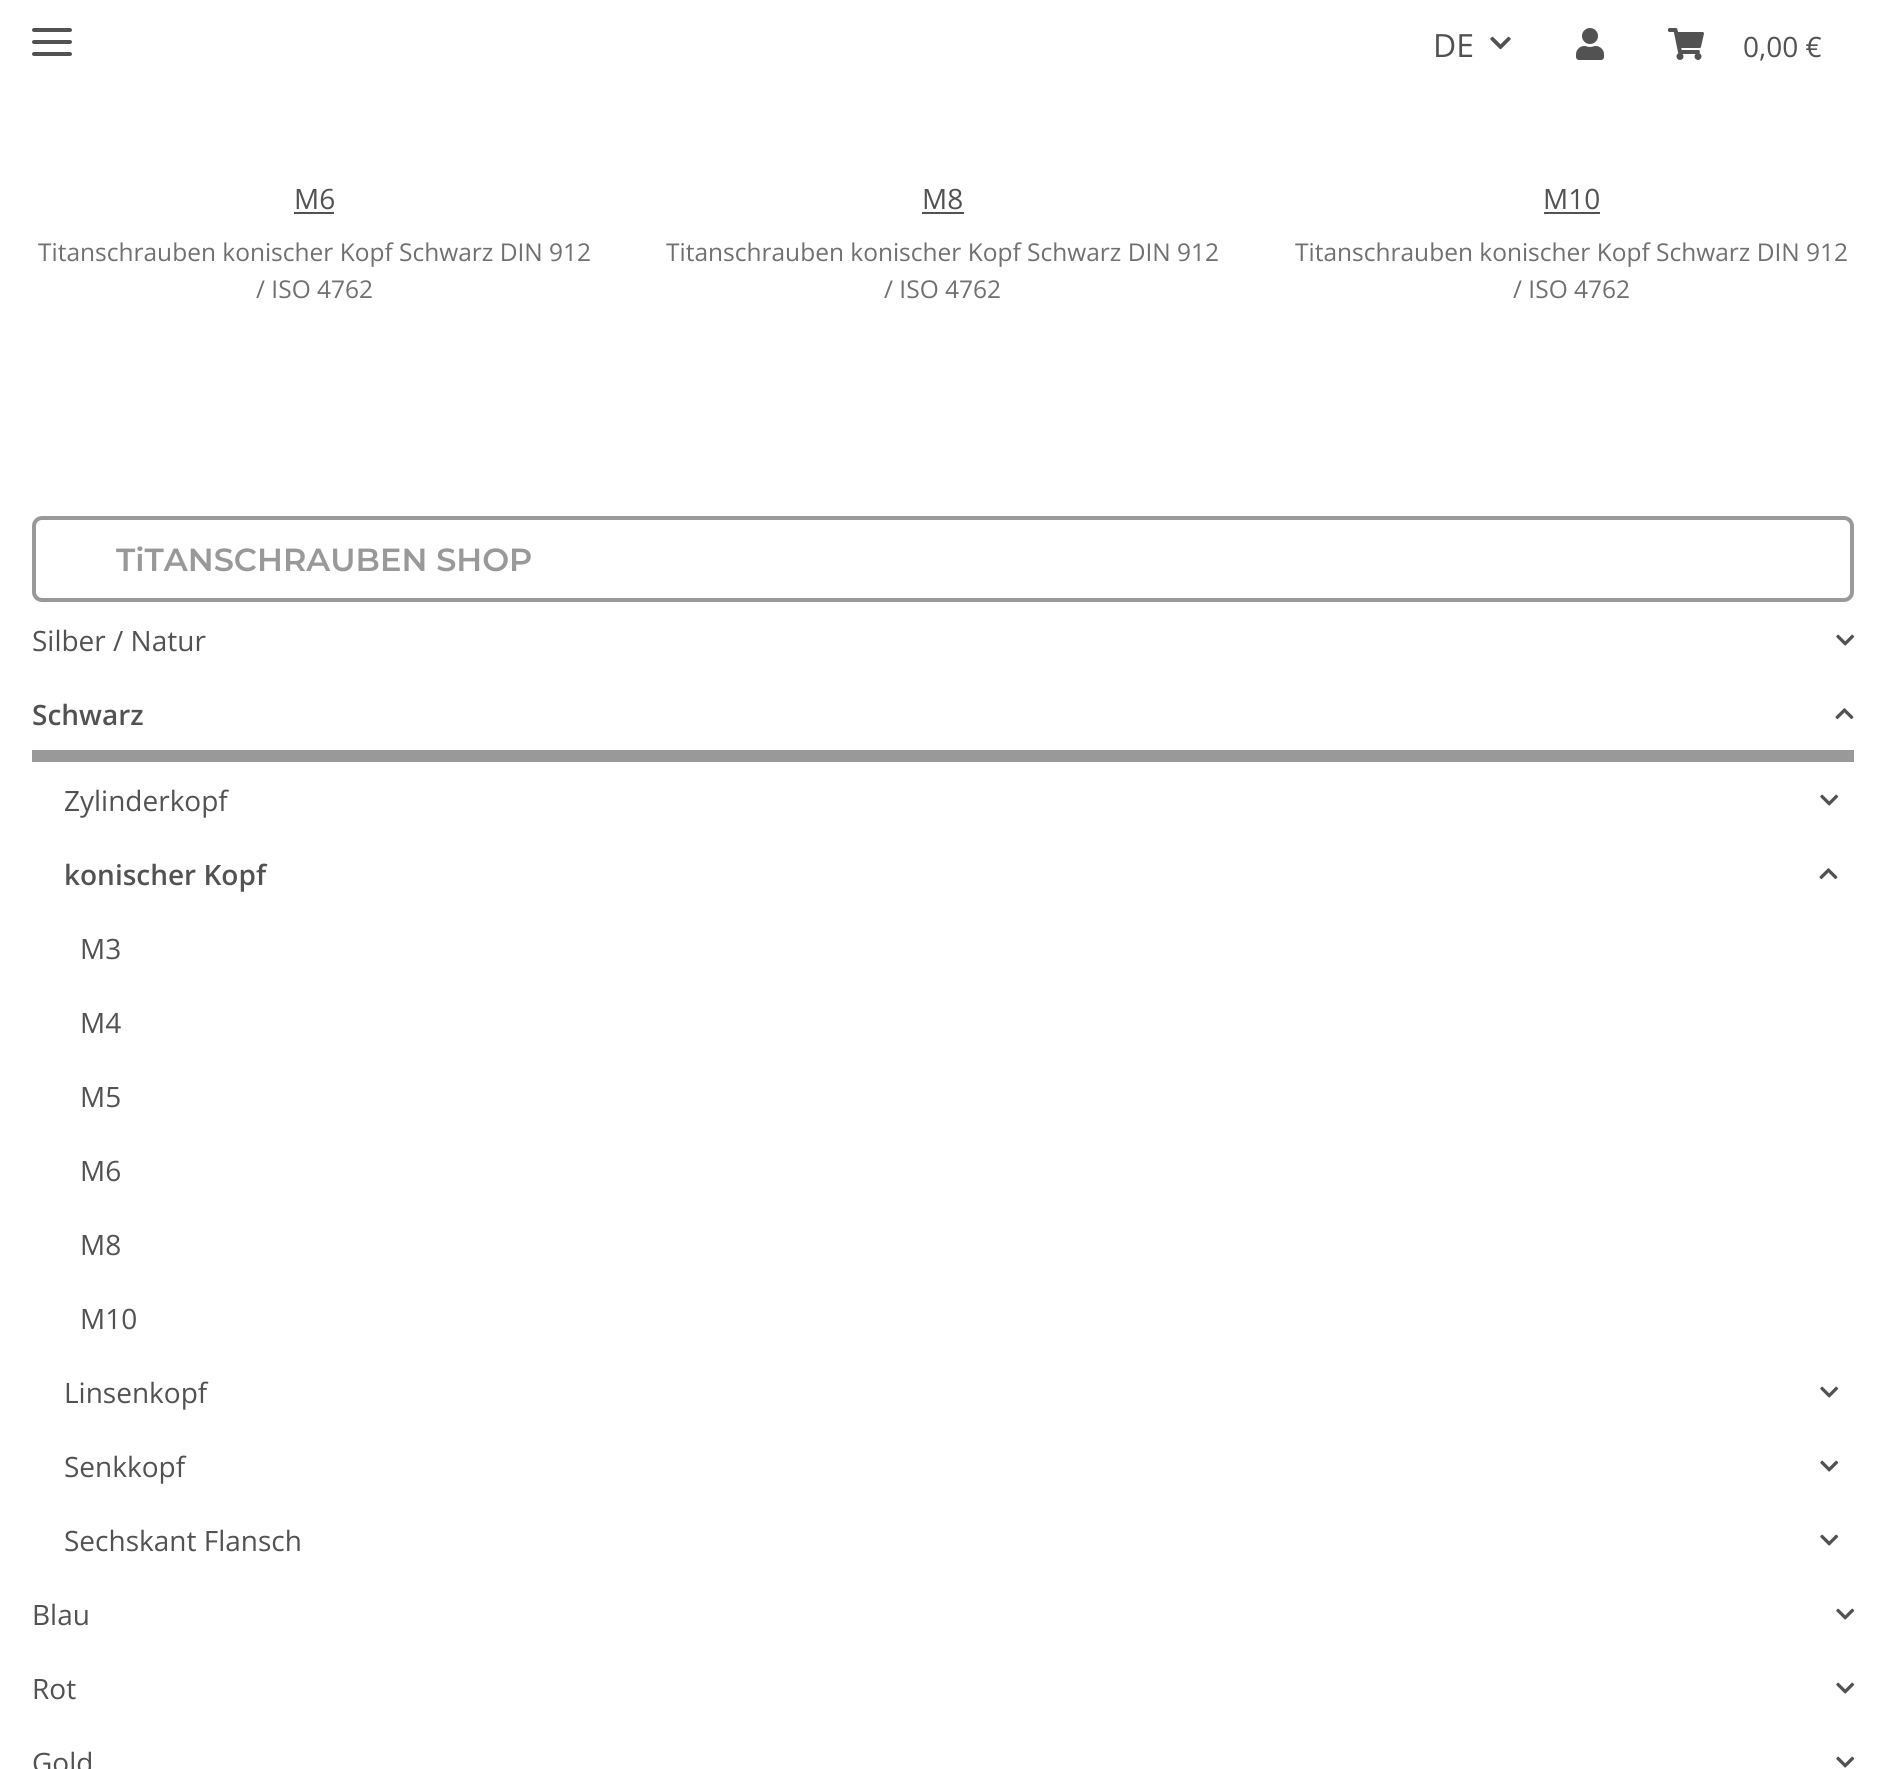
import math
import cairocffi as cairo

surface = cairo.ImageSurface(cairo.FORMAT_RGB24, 1886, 1769)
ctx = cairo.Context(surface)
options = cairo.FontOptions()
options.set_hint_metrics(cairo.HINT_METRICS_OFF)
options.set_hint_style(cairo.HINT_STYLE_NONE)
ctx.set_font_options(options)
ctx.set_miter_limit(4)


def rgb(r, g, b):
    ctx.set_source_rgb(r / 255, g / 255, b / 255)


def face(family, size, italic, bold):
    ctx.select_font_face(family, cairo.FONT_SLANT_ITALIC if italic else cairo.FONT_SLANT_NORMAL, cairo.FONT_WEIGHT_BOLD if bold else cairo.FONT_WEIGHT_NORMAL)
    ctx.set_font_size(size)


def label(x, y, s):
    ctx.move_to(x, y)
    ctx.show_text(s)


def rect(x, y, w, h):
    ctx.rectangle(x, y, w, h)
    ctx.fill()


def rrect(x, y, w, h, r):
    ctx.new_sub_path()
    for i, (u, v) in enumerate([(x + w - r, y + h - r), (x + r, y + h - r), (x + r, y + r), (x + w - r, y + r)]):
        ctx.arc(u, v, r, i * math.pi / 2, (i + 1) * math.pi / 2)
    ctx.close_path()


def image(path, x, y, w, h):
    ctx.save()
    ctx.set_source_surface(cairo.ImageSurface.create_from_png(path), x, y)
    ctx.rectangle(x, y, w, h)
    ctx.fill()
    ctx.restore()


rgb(255, 255, 255)
ctx.paint()
rgb(82, 82, 82)
rrect(32, 40, 40, 4, 2)
ctx.fill()
rrect(32, 28, 40, 4, 2)
ctx.fill()
rrect(32, 52, 40, 4, 2)
ctx.fill()
face('Open Sans', 32, 0, 0)
label(1433, 57, 'DE')
image('image0.png', 1490, 36, 21, 14)
image('image1.png', 1576, 28, 28, 32)
image('image2.png', 1668, 28, 36, 32)
face('Open Sans', 28, 0, 0)
label(1743, 57, '0,00 €')
label(294, 209, 'M6')
rect(294, 212, 40, 2)
face('Open Sans', 24.5, 0, 0)
rgb(112, 112, 112)
label(38, 261, 'Titanschrauben konischer Kopf Schwarz DIN 912')
label(256, 298, '/ ISO 4762')
face('Open Sans', 28, 0, 0)
rgb(82, 82, 82)
label(922, 209, 'M8')
rect(922, 212, 42, 2)
face('Open Sans', 24.5, 0, 0)
rgb(112, 112, 112)
label(666, 261, 'Titanschrauben konischer Kopf Schwarz DIN 912')
label(884, 298, '/ ISO 4762')
face('Open Sans', 28, 0, 0)
rgb(82, 82, 82)
label(1543, 209, 'M10')
rect(1544, 212, 56, 2)
face('Open Sans', 24.5, 0, 0)
rgb(112, 112, 112)
label(1295, 261, 'Titanschrauben konischer Kopf Schwarz DIN 912')
label(1513, 298, '/ ISO 4762')
rrect(34, 518, 1818, 82, 8)
rgb(153, 153, 153)
ctx.set_line_width(4)
ctx.stroke()
face('Montserrat SemiBold', 32, 0, 0)
label(116, 571, 'TiTANSCHRAUBEN SHOP')
face('Open Sans', 28, 0, 0)
rgb(82, 82, 82)
label(32, 651, 'Silber / Natur')
image('image3.png', 1836, 634, 19, 12)
rgb(153, 153, 153)
rect(32, 750, 1822, 12)
face('Open Sans SemiBold', 28, 0, 0)
rgb(82, 82, 82)
label(32, 725, 'Schwarz')
image('image4.png', 1835, 708, 19, 11)
face('Open Sans', 28, 0, 0)
label(64, 811, 'Zylinderkopf')
image('image3.png', 1820, 794, 19, 12)
face('Open Sans SemiBold', 28, 0, 0)
label(64, 885, 'konischer Kopf')
image('image4.png', 1819, 868, 19, 11)
face('Open Sans', 28, 0, 0)
label(80, 959, 'M3')
label(80, 1033, 'M4')
label(80, 1107, 'M5')
label(80, 1181, 'M6')
label(80, 1255, 'M8')
label(80, 1329, 'M10')
label(64, 1403, 'Linsenkopf')
image('image3.png', 1820, 1386, 19, 12)
label(64, 1477, 'Senkkopf')
image('image3.png', 1820, 1460, 19, 12)
label(64, 1551, 'Sechskant Flansch')
image('image3.png', 1820, 1534, 19, 12)
label(32, 1625, 'Blau')
image('image3.png', 1836, 1608, 19, 12)
label(32, 1699, 'Rot')
image('image3.png', 1836, 1682, 19, 12)
label(32, 1773, 'Gold')
image('image3.png', 1836, 1756, 19, 12)
surface.write_to_png('render.png')
